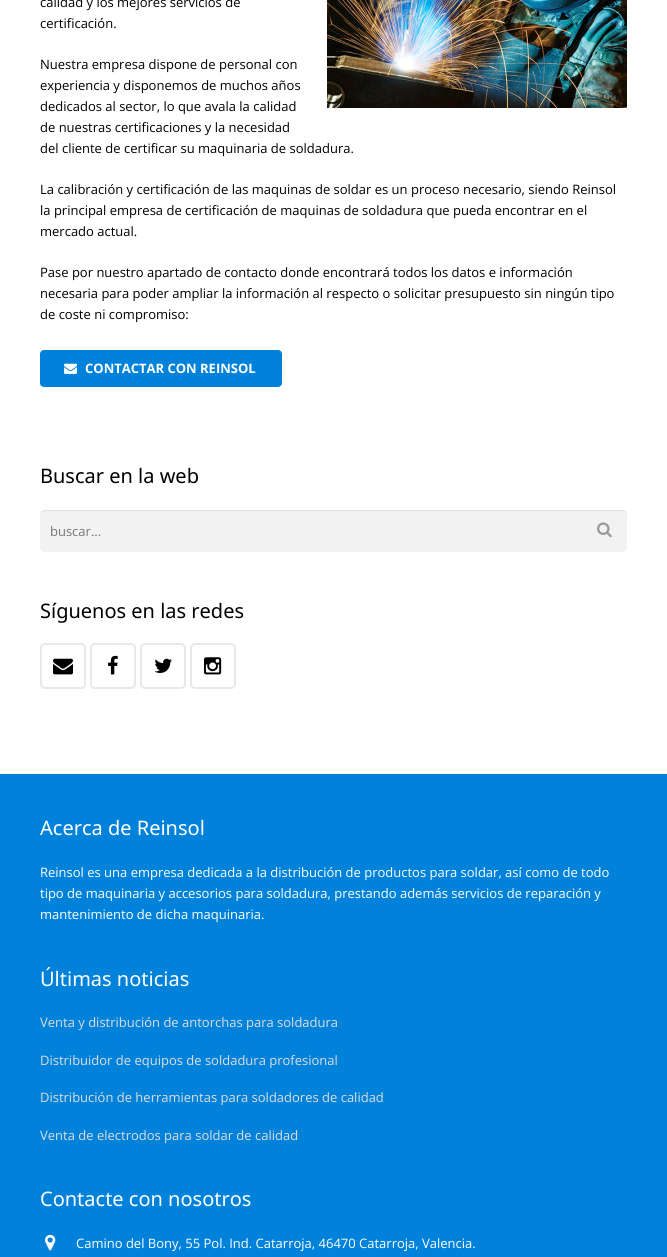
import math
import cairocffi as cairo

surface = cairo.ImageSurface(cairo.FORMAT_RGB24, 667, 1257)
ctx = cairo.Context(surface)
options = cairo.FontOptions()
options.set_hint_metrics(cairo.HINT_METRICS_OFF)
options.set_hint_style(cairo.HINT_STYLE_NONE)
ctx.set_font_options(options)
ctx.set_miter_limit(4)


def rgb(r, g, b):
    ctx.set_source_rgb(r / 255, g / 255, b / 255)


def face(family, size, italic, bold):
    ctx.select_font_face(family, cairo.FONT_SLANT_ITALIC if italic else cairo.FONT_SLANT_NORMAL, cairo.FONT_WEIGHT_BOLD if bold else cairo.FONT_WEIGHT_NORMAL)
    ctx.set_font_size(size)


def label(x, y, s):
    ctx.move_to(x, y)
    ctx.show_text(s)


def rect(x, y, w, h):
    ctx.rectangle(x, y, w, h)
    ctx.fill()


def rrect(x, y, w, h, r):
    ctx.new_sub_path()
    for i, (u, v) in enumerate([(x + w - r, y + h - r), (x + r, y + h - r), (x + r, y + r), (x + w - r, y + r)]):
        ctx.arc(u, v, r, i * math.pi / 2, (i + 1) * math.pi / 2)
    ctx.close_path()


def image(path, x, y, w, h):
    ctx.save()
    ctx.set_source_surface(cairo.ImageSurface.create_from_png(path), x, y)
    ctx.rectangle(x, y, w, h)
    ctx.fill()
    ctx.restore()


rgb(255, 255, 255)
ctx.paint()
rgb(0, 120, 201)
rect(0, 774, 667, 1)
face('Open Sans', 13, 0, 0)
rgb(0, 0, 0)
label(40, 7, 'calidad y los mejores servicios de')
image('image0.png', 327, 0, 300, 108)
label(40, 28, 'certificación.')
label(40, 69, 'Nuestra empresa dispone de personal con')
label(40, 90, 'experiencia y disponemos de muchos años')
label(40, 111, 'dedicados al sector, lo que avala la calidad')
label(40, 132, 'de nuestras certificaciones y la necesidad')
label(40, 153, 'del cliente de certificar su maquinaria de soldadura.')
label(40, 194, 'La calibración y certificación de las maquinas de soldar es un proceso necesario, siendo Reinsol')
label(40, 215, 'la principal empresa de certificación de maquinas de soldadura que pueda encontrar en el')
label(40, 236, 'mercado actual.')
label(40, 277, 'Pase por nuestro apartado de contacto donde encontrará todos los datos e información')
label(40, 298, 'necesaria para poder ampliar la información al respecto o solicitar presupuesto sin ningún tipo')
label(40, 319, 'de coste ni compromiso:')
rgb(0, 130, 218)
rrect(40, 350, 242, 37, 4)
ctx.fill()
image('image1.png', 64, 363, 13, 11)
face('Open Sans', 13, 0, 1)
rgb(255, 255, 255)
label(85, 373, 'CONTACTAR CON REINSOL')
face('Noto Sans', 20, 0, 0)
rgb(0, 0, 0)
label(40, 483, 'Buscar en la web')
rgb(242, 242, 242)
rrect(40, 510, 587, 42, 5)
ctx.fill()
ctx.set_source_rgba(0, 0, 0, 0.08)
ctx.new_path()
ctx.move_to(45, 511)
ctx.line_to(622, 511)
ctx.curve_to(625, 511, 627, 513, 627, 516)
ctx.line_to(627, 515)
ctx.curve_to(627, 512, 625, 510, 622, 510)
ctx.line_to(45, 510)
ctx.curve_to(42, 510, 40, 512, 40, 515)
ctx.line_to(40, 516)
ctx.curve_to(40, 513, 42, 511, 45, 511)
ctx.close_path()
ctx.fill()
face('Open Sans', 13, 0, 0)
rgb(117, 117, 117)
label(50, 536, 'buscar...')
image('image2.png', 597, 522, 15, 16)
face('Noto Sans', 20, 0, 0)
rgb(0, 0, 0)
label(40, 618, 'Síguenos en las redes')
rrect(41, 644, 44, 44, 4)
rgb(232, 232, 232)
ctx.stroke()
image('image3.png', 53, 658, 20, 17)
rrect(91, 644, 44, 44, 4)
ctx.stroke()
image('image4.png', 108, 655, 10, 20)
rrect(141, 644, 44, 44, 4)
ctx.stroke()
image('image5.png', 154, 658, 18, 15)
rrect(191, 644, 44, 44, 4)
ctx.stroke()
image('image6.png', 204, 657, 18, 18)
rgb(0, 130, 218)
rect(0, 775, 667, 482)
rgb(255, 255, 255)
label(40, 835, 'Acerca de Reinsol')
face('Open Sans', 13, 0, 0)
label(40, 877, 'Reinsol es una empresa dedicada a la distribución de productos para soldar, así como de todo')
label(40, 898, 'tipo de maquinaria y accesorios para soldadura, prestando además servicios de reparación y')
label(40, 919, 'mantenimiento de dicha maquinaria.')
face('Noto Sans', 20, 0, 0)
label(40, 986, 'Últimas noticias')
face('Open Sans', 13, 0, 0)
rgb(221, 221, 221)
label(40, 1027, 'Venta y distribución de antorchas para soldadura')
label(40, 1065, 'Distribuidor de equipos de soldadura profesional')
label(40, 1102, 'Distribución de herramientas para soldadores de calidad')
label(40, 1140, 'Venta de electrodos para soldar de calidad')
face('Noto Sans', 20, 0, 0)
rgb(255, 255, 255)
label(40, 1206, 'Contacte con nosotros')
image('image7.png', 45, 1234, 11, 17)
face('Open Sans', 13, 0, 0)
label(76, 1248, 'Camino del Bony, 55 Pol. Ind. Catarroja, 46470 Catarroja, Valencia.')
surface.write_to_png('render.png')
